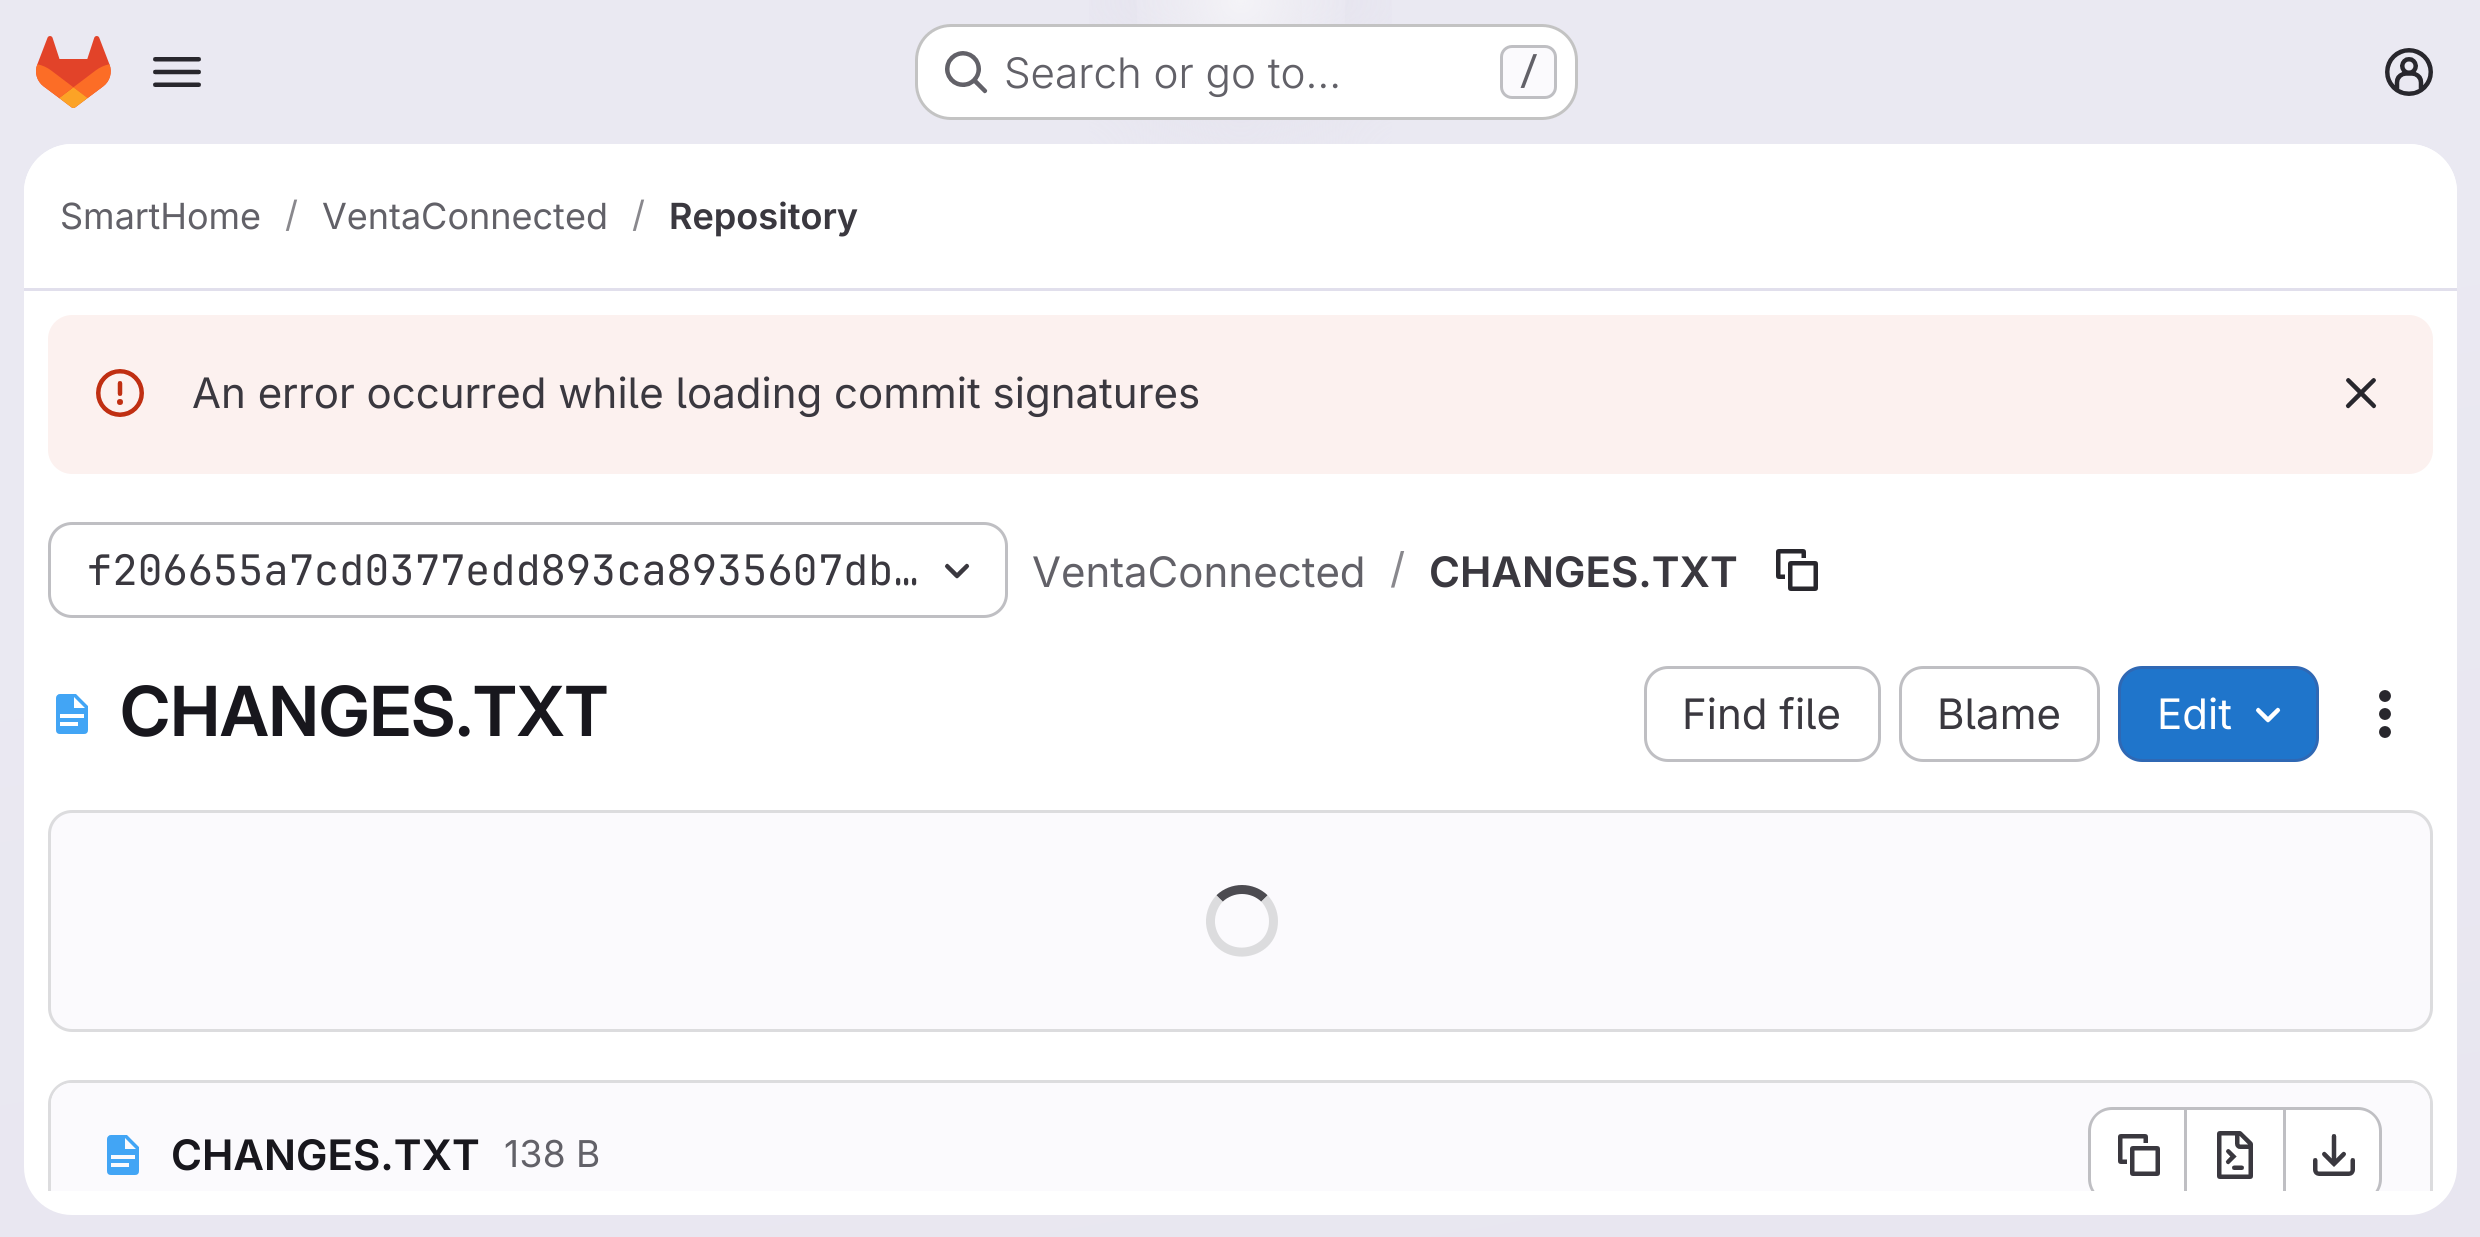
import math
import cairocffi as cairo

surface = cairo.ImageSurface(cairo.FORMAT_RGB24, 2480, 1237)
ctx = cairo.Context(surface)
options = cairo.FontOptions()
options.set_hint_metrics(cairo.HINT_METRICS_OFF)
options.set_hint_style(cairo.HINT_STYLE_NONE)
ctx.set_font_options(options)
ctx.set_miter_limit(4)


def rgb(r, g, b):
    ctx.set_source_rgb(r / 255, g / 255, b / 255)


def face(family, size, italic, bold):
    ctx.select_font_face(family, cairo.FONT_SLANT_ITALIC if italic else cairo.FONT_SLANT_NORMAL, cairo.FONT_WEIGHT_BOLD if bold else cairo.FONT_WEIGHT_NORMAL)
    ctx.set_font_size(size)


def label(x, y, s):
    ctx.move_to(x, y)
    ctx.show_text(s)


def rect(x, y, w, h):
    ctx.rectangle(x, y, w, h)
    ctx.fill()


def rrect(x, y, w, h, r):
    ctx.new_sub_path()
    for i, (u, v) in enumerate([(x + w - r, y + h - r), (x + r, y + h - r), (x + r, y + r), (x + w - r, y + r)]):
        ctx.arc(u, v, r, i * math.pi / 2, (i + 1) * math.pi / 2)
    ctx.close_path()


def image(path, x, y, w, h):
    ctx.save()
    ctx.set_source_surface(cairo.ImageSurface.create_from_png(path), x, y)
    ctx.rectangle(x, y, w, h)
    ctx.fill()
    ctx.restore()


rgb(255, 255, 255)
ctx.paint()
gradient = cairo.LinearGradient(1384, 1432, 1097, -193)
gradient.add_color_stop_rgba(0, 0.91, 0.902, 0.941, 1)
gradient.add_color_stop_rgba(0.7, 0.918, 0.914, 0.949, 1)
ctx.set_source(gradient)
rect(0, 0, 2480, 1237)
gradient = cairo.RadialGradient(0, 0, 0, 0, 0, 1)
gradient.set_matrix(cairo.Matrix(1 / 1241, 0, 0, 1 / 1239, -1 * 1241 / 1241, -1 * 0 / 1239))
gradient.add_color_stop_rgba(0, 0.894, 0.886, 0.929, 1)
gradient.add_color_stop_rgba(0.17, 0.894, 0.886, 0.929, 0)
ctx.set_source(gradient)
rect(1089, 0, 303, 144)
gradient = cairo.RadialGradient(0, 0, 0, 0, 0, 1)
gradient.set_matrix(cairo.Matrix(1 / 1241, 0, 0, 1 / 1239, -1 * 1241 / 1241, -1 * 0 / 1239))
gradient.add_color_stop_rgba(0, 0.894, 0.886, 0.925, 1)
gradient.add_color_stop_rgba(0.12, 0.894, 0.886, 0.925, 0)
ctx.set_source(gradient)
rect(1180, 0, 122, 61)
gradient = cairo.RadialGradient(1241, 0, 0, 1241, 0, 1753)
gradient.add_color_stop_rgba(0, 1, 1, 1, 0.6)
gradient.add_color_stop_rgba(0.07, 1, 1, 1, 0)
ctx.set_source(gradient)
rect(1137, 0, 208, 24)
image('image0.png', 36, 36, 75, 72)
image('image1.png', 153, 57, 48, 30)
rgb(255, 255, 255)
rrect(915, 24, 663, 96, 36)
ctx.fill()
rrect(916.5, 25.5, 660, 93, 34.5)
ctx.set_source_rgba(0.02, 0.02, 0.024, 0.24)
ctx.set_line_width(3)
ctx.stroke()
image('image2.png', 945, 51, 43, 43)
face('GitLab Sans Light', 42, 0, 0)
rgb(98, 97, 104)
label(1004, 88, 'Search or go to…')
rgb(251, 250, 253)
rrect(1501.5, 46.5, 54, 51, 10.5)
ctx.fill_preserve()
rgb(191, 191, 195)
ctx.stroke()
face('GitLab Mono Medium', 36, 0, 0)
rgb(98, 97, 104)
label(1518, 84, '/')
image('image3.png', 2385, 48, 48, 48)
rgb(255, 255, 255)
rrect(24, 144, 2433, 1071, 48)
ctx.fill()
ctx.new_path()
ctx.move_to(72, 144)
ctx.line_to(2409, 144)
ctx.curve_to(2435.5, 144, 2457, 165.5, 2457, 192)
ctx.line_to(2457, 291)
ctx.line_to(24, 291)
ctx.line_to(24, 192)
ctx.curve_to(24, 165.5, 45.5, 144, 72, 144)
ctx.close_path()
ctx.fill()
rgb(225, 223, 236)
rect(24, 288, 2433, 3)
face('GitLab Sans', 36, 0, 0)
rgb(98, 97, 104)
label(60, 229, 'SmartHome')
rgb(137, 136, 141)
label(285, 227, '/')
rgb(98, 97, 104)
label(322, 229, 'VentaConnected')
rgb(137, 136, 141)
label(632, 227, '/')
face('GitLab Sans SemiBold', 36, 0, 0)
rgb(58, 56, 63)
label(669, 229, 'Repository')
rgb(252, 241, 239)
rrect(48, 315, 2385, 159, 24)
ctx.fill()
image('image4.png', 96, 369, 48, 48)
face('GitLab Sans', 42, 0, 0)
rgb(58, 56, 63)
label(192, 408, 'An error occurred while loading commit signatures')
image('image5.png', 2345, 378, 32, 31)
rrect(49.5, 523.5, 957, 93, 22.5)
rgb(191, 191, 195)
ctx.stroke()
face('GitLab Mono', 42, 0, 0)
rgb(58, 56, 63)
label(87, 585, 'f206655a7cd0377edd893ca8935607db…')
image('image6.png', 944, 563, 26, 16)
face('GitLab Sans', 42, 0, 0)
rgb(98, 97, 104)
label(1032, 587, 'VentaConnected')
rgb(137, 136, 141)
label(1390, 583, '/')
face('GitLab Sans SemiBold', 42, 0, 0)
rgb(58, 56, 63)
label(1429, 587, 'CHANGES.TXT')
image('image7.png', 1776, 549, 42, 42)
image('image8.png', 56, 694, 32, 40)
face('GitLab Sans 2 SemiBold', 69, 0, 0)
rgb(24, 23, 29)
label(120, 736, 'CHANGES.TXT')
rrect(1645.5, 667.5, 234, 93, 22.5)
rgb(191, 191, 195)
ctx.stroke()
face('GitLab Sans', 42, 0, 0)
rgb(58, 56, 63)
label(1682, 729, 'Find file')
rrect(1900.5, 667.5, 198, 93, 22.5)
rgb(191, 191, 195)
ctx.stroke()
rgb(58, 56, 63)
label(1937, 729, 'Blame')
rgb(31, 117, 203)
rrect(2119.5, 667.5, 198, 93, 22.5)
ctx.fill_preserve()
rgb(47, 104, 180)
ctx.stroke()
rgb(255, 255, 255)
label(2157, 729, 'Edit')
image('image9.png', 2255, 707, 26, 16)
image('image10.png', 2379, 690, 12, 48)
rgb(251, 250, 253)
rrect(49.5, 811.5, 2382, 219, 22.5)
ctx.fill_preserve()
rgb(220, 220, 222)
ctx.stroke()
ctx.new_path()
ctx.move_to(1219.5, 898.5)
ctx.curve_to(1232, 886.5, 1252, 886.5, 1264.5, 898.5)
rgb(76, 75, 81)
ctx.set_line_width(9)
ctx.stroke()
ctx.new_path()
ctx.move_to(1264.5, 898.5)
ctx.curve_to(1270, 904.5, 1273.5, 912.5, 1273.5, 921)
ctx.curve_to(1273.5, 958.5, 1218.5, 964, 1211, 927)
ctx.curve_to(1209, 917, 1212.5, 906, 1219.5, 898.5)
rgb(220, 220, 222)
ctx.stroke()
ctx.save()
ctx.rectangle(24, 291, 2433, 900)
ctx.clip()
ctx.new_path()
ctx.move_to(72, 1080)
ctx.curve_to(59, 1080, 48, 1091, 48, 1104)
ctx.line_to(48, 1209)
ctx.line_to(51, 1210)
ctx.line_to(51, 1104)
ctx.curve_to(51, 1092, 60, 1083, 72, 1083)
ctx.line_to(2409, 1083)
ctx.curve_to(2421, 1083, 2430, 1092, 2430, 1104)
ctx.line_to(2430, 1210)
ctx.line_to(2433, 1209)
ctx.line_to(2433, 1104)
ctx.curve_to(2433, 1091, 2422, 1080, 2409, 1080)
ctx.close_path()
ctx.fill()
ctx.restore()
rgb(251, 250, 253)
ctx.new_path()
ctx.move_to(72, 1083)
ctx.line_to(2409, 1083)
ctx.curve_to(2420.5, 1083, 2430, 1092.5, 2430, 1104)
ctx.line_to(2430, 1191)
ctx.line_to(51, 1191)
ctx.line_to(51, 1104)
ctx.curve_to(51, 1092.5, 60.5, 1083, 72, 1083)
ctx.close_path()
ctx.fill()
image('image11.png', 107, 1135, 32, 40)
face('GitLab Sans SemiBold', 42, 0, 0)
rgb(24, 23, 29)
label(171, 1170, 'CHANGES.TXT')
face('GitLab Sans', 37, 0, 0)
rgb(98, 97, 104)
label(504, 1167, '138 B')
ctx.save()
ctx.rectangle(24, 291, 2433, 900)
ctx.clip()
rgb(255, 255, 255)
ctx.new_path()
ctx.move_to(2112, 1110)
ctx.line_to(2184, 1110)
ctx.line_to(2184, 1200)
ctx.line_to(2112, 1200)
ctx.curve_to(2100.5, 1200, 2091, 1190.5, 2091, 1179)
ctx.line_to(2091, 1131)
ctx.curve_to(2091, 1119.5, 2100.5, 1110, 2112, 1110)
ctx.close_path()
ctx.fill()
rgb(191, 191, 195)
ctx.set_fill_rule(cairo.FILL_RULE_EVEN_ODD)
ctx.new_path()
ctx.move_to(2112, 1107)
ctx.line_to(2184, 1107)
ctx.line_to(2184, 1203)
ctx.line_to(2112, 1203)
ctx.curve_to(2099, 1203, 2088, 1192, 2088, 1179)
ctx.line_to(2088, 1131)
ctx.curve_to(2088, 1118, 2099, 1107, 2112, 1107)
ctx.close_path()
ctx.move_to(2112, 1110)
ctx.line_to(2184, 1110)
ctx.line_to(2184, 1200)
ctx.line_to(2112, 1200)
ctx.curve_to(2100, 1200, 2091, 1191, 2091, 1179)
ctx.line_to(2091, 1131)
ctx.curve_to(2091, 1119, 2100, 1110, 2112, 1110)
ctx.close_path()
ctx.fill()
ctx.restore()
image('image12.png', 2118, 1134, 42, 42)
rgb(255, 255, 255)
rect(2187, 1110, 96, 81)
rgb(191, 191, 195)
rect(2187, 1107, 96, 3)
rect(2184, 1107, 3, 84)
image('image13.png', 2217, 1131, 36, 48)
ctx.save()
ctx.rectangle(24, 291, 2433, 900)
ctx.clip()
rgb(255, 255, 255)
ctx.new_path()
ctx.move_to(2286, 1110)
ctx.line_to(2358, 1110)
ctx.curve_to(2369.5, 1110, 2379, 1119.5, 2379, 1131)
ctx.line_to(2379, 1179)
ctx.curve_to(2379, 1190.5, 2369.5, 1200, 2358, 1200)
ctx.line_to(2286, 1200)
ctx.close_path()
ctx.fill()
rgb(191, 191, 195)
ctx.set_fill_rule(cairo.FILL_RULE_EVEN_ODD)
ctx.new_path()
ctx.move_to(2286, 1107)
ctx.line_to(2358, 1107)
ctx.curve_to(2371, 1107, 2382, 1118, 2382, 1131)
ctx.line_to(2382, 1179)
ctx.curve_to(2382, 1192, 2371, 1203, 2358, 1203)
ctx.line_to(2286, 1203)
ctx.close_path()
ctx.move_to(2286, 1110)
ctx.line_to(2358, 1110)
ctx.curve_to(2370, 1110, 2379, 1119, 2379, 1131)
ctx.line_to(2379, 1179)
ctx.curve_to(2379, 1191, 2370, 1200, 2358, 1200)
ctx.line_to(2286, 1200)
ctx.close_path()
ctx.fill()
ctx.restore()
rect(2283, 1107, 3, 84)
image('image14.png', 2313, 1134, 42, 42)
surface.write_to_png('render.png')
